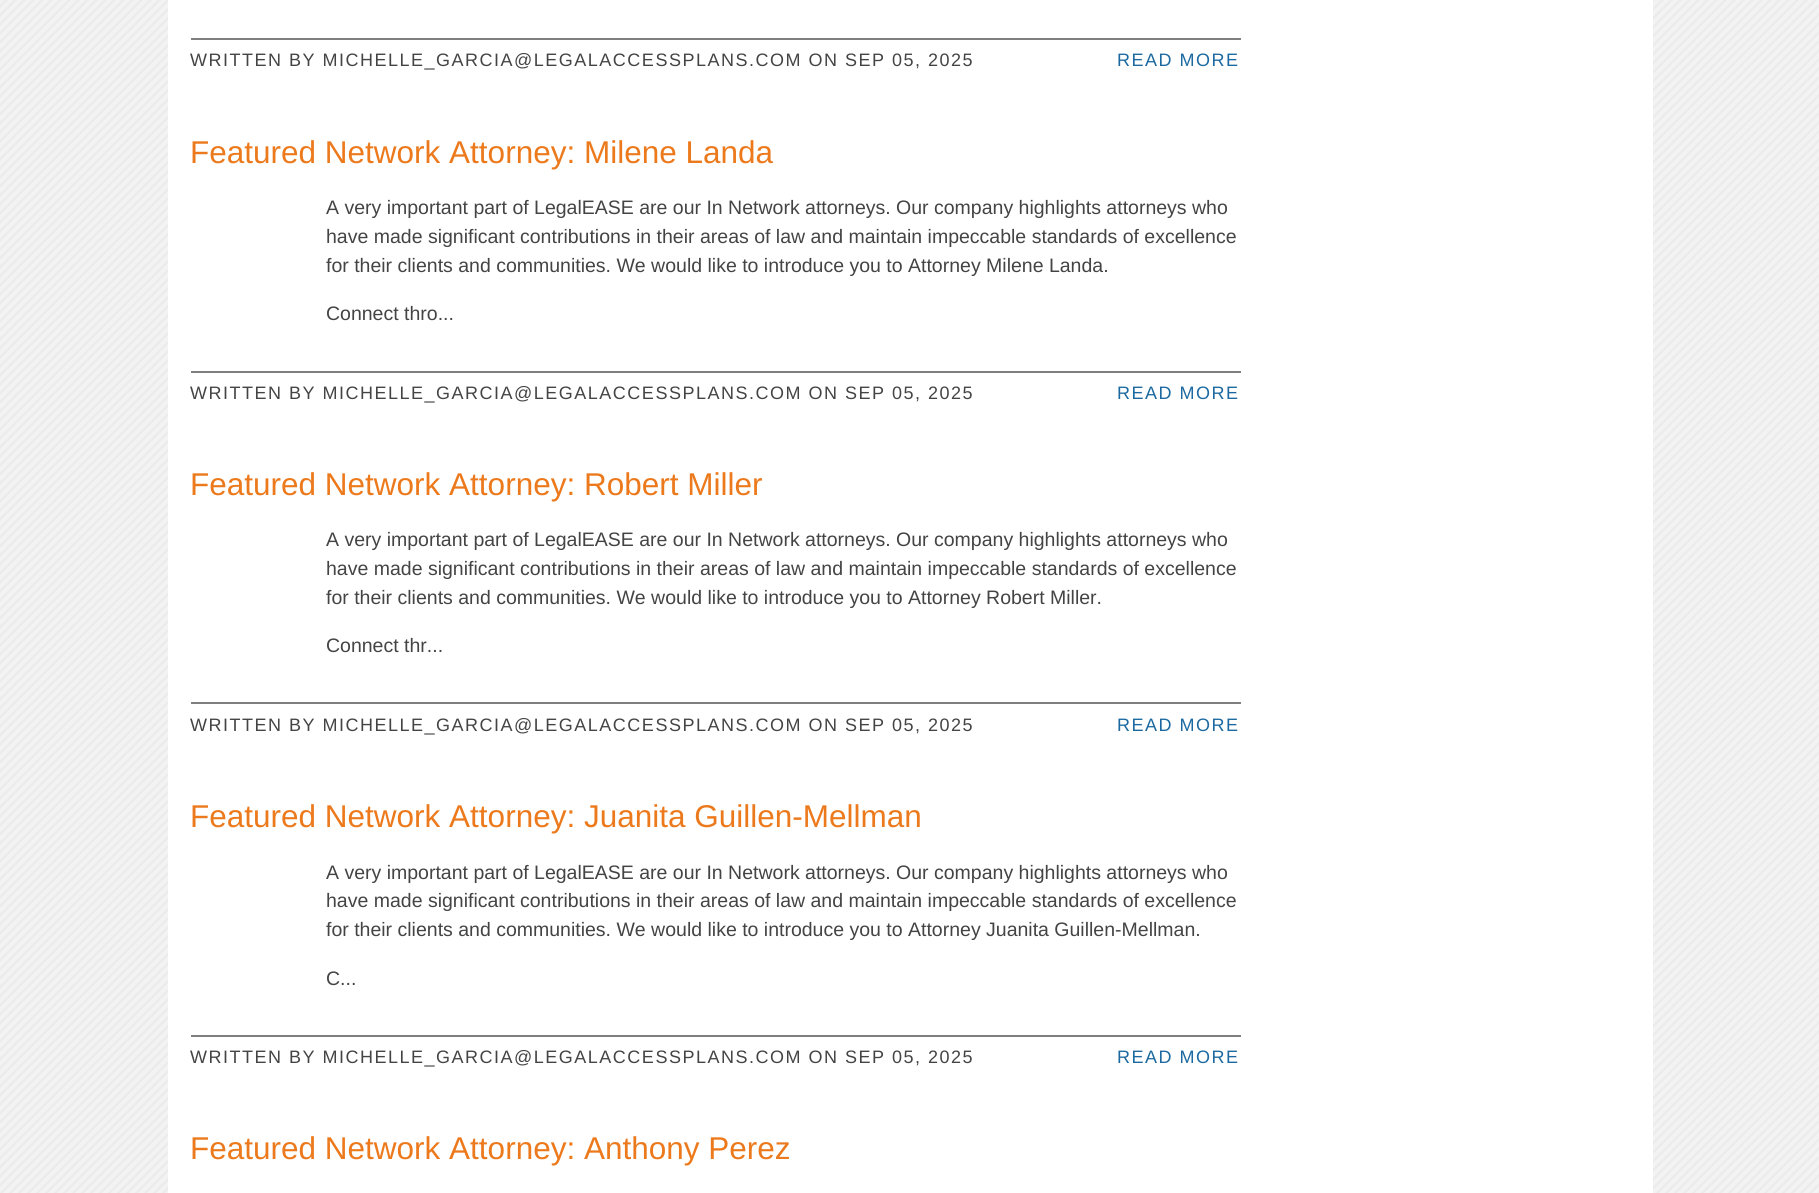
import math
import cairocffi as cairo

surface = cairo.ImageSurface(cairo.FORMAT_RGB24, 1819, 1193)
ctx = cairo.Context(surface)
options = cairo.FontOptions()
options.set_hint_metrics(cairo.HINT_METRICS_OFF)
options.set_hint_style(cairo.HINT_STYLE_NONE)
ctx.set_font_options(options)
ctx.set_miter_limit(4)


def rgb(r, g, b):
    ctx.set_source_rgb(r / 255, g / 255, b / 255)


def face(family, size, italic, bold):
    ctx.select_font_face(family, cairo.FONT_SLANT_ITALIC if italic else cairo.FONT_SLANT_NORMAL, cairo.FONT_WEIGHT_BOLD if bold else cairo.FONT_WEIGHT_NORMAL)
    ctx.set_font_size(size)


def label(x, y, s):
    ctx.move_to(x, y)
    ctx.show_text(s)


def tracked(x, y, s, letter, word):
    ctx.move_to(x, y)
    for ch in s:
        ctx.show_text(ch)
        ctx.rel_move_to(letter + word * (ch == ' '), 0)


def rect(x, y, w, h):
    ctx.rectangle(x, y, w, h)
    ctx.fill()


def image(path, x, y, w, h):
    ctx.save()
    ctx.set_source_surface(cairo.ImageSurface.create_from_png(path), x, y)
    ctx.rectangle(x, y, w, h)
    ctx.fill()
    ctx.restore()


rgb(255, 255, 255)
ctx.paint()
image('image0.png', 0, 0, 1819, 1193)
rgb(255, 255, 255)
rect(168, 0, 1485, 1193)
rgb(127, 127, 127)
rect(191, 38, 1050, 2)
face('Liberation Sans', 18, 0, 0)
rgb(68, 68, 68)
tracked(190, 66, 'WRITTEN BY MICHELLE_GARCIA@LEGALACCESSPLANS.COM ON SEP 05, 2025', 1.5, 0)
rgb(27, 105, 160)
tracked(1117, 66, 'READ MORE', 1.5, 0)
face('Liberation Sans', 31.5, 0, 0)
rgb(236, 122, 29)
label(190, 163, 'Featured Network Attorney: Milene Landa')
face('Liberation Sans', 19.5, 0, 0)
rgb(68, 68, 68)
label(326, 214, 'A very important part of LegalEASE are our In Network attorneys. Our company highlights attorneys who')
label(326, 243, 'have made significant contributions in their areas of law and maintain impeccable standards of excellence')
label(326, 272, 'for their clients and communities. We would like to introduce you to Attorney Milene Landa.')
label(326, 320, 'Connect thro...')
rgb(127, 127, 127)
rect(191, 371, 1050, 2)
face('Liberation Sans', 18, 0, 0)
rgb(68, 68, 68)
tracked(190, 399, 'WRITTEN BY MICHELLE_GARCIA@LEGALACCESSPLANS.COM ON SEP 05, 2025', 1.5, 0)
rgb(27, 105, 160)
tracked(1117, 399, 'READ MORE', 1.5, 0)
face('Liberation Sans', 31.5, 0, 0)
rgb(236, 122, 29)
label(190, 495, 'Featured Network Attorney: Robert Miller')
face('Liberation Sans', 19.5, 0, 0)
rgb(68, 68, 68)
label(326, 546, 'A very important part of LegalEASE are our In Network attorneys. Our company highlights attorneys who')
label(326, 575, 'have made significant contributions in their areas of law and maintain impeccable standards of excellence')
label(326, 604, 'for their clients and communities. We would like to introduce you to Attorney Robert Miller.')
label(326, 652, 'Connect thr...')
rgb(127, 127, 127)
rect(191, 702, 1050, 2)
face('Liberation Sans', 18, 0, 0)
rgb(68, 68, 68)
tracked(190, 731, 'WRITTEN BY MICHELLE_GARCIA@LEGALACCESSPLANS.COM ON SEP 05, 2025', 1.5, 0)
rgb(27, 105, 160)
tracked(1117, 731, 'READ MORE', 1.5, 0)
face('Liberation Sans', 31.5, 0, 0)
rgb(236, 122, 29)
label(190, 827, 'Featured Network Attorney: Juanita Guillen-Mellman')
face('Liberation Sans', 19.5, 0, 0)
rgb(68, 68, 68)
label(326, 879, 'A very important part of LegalEASE are our In Network attorneys. Our company highlights attorneys who')
label(326, 907, 'have made significant contributions in their areas of law and maintain impeccable standards of excellence')
label(326, 936, 'for their clients and communities. We would like to introduce you to Attorney Juanita Guillen-Mellman.')
label(326, 985, 'C...')
rgb(127, 127, 127)
rect(191, 1035, 1050, 2)
face('Liberation Sans', 18, 0, 0)
rgb(68, 68, 68)
tracked(190, 1063, 'WRITTEN BY MICHELLE_GARCIA@LEGALACCESSPLANS.COM ON SEP 05, 2025', 1.5, 0)
rgb(27, 105, 160)
tracked(1117, 1063, 'READ MORE', 1.5, 0)
face('Liberation Sans', 31.5, 0, 0)
rgb(236, 122, 29)
label(190, 1159, 'Featured Network Attorney: Anthony Perez')
surface.write_to_png('render.png')
